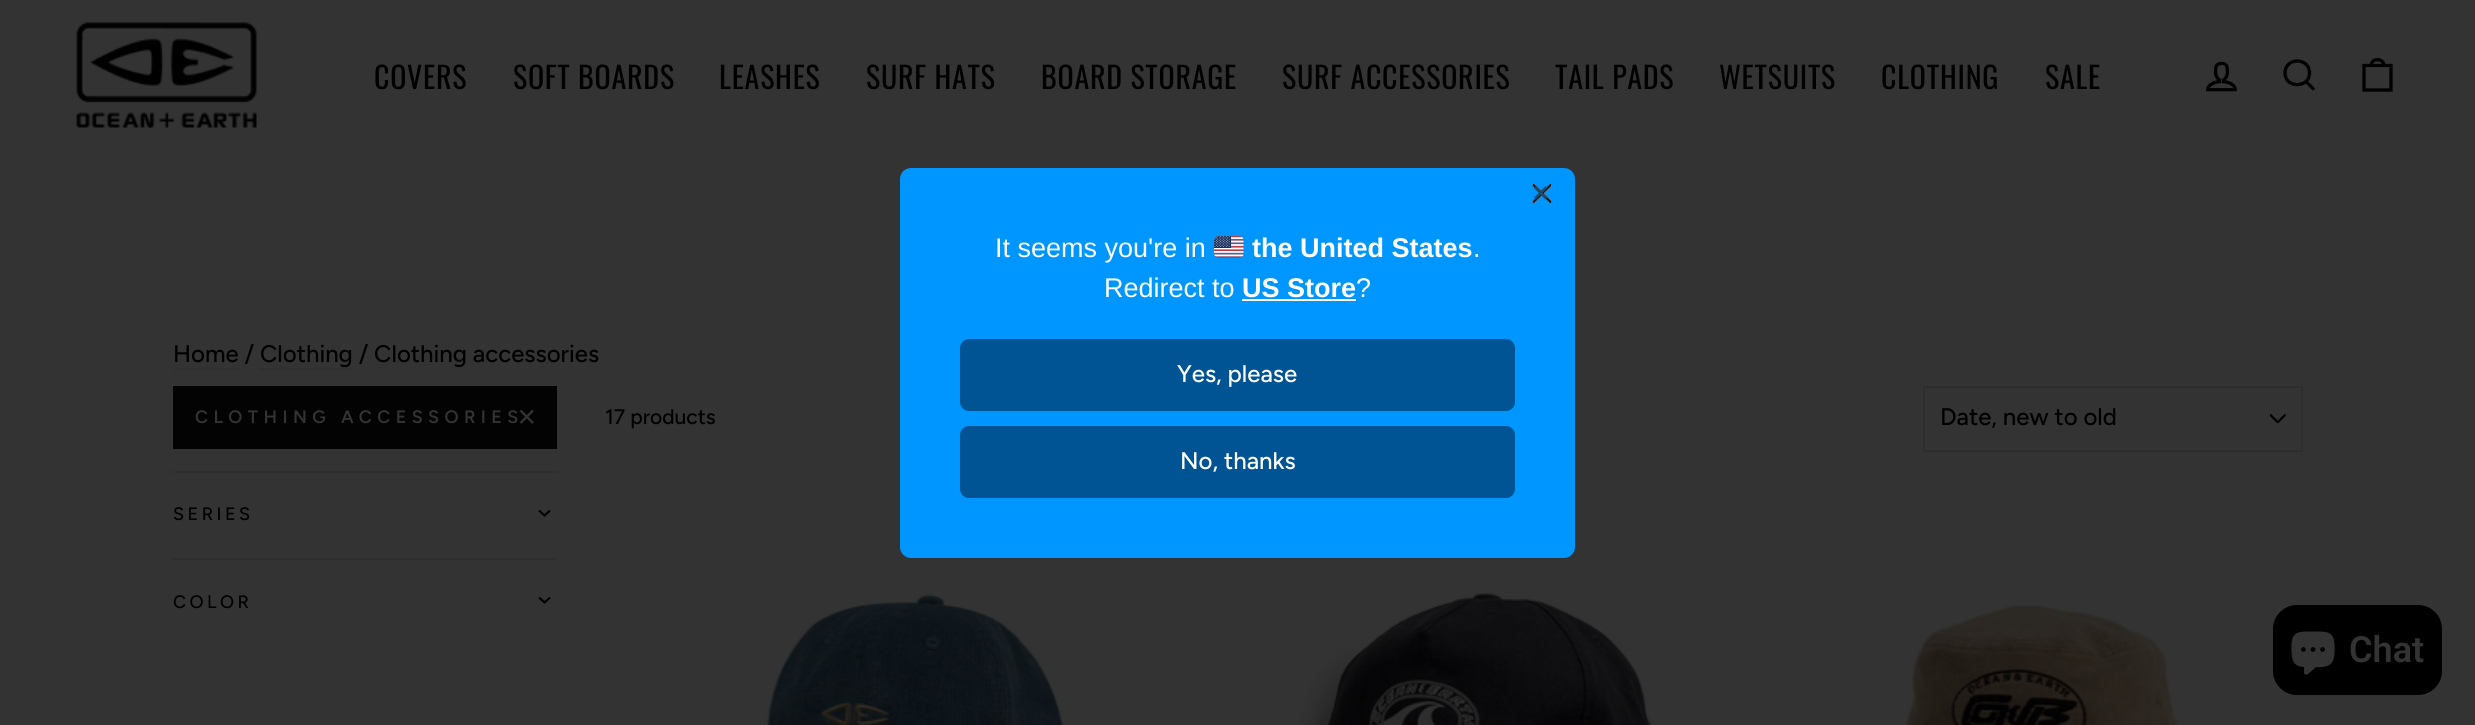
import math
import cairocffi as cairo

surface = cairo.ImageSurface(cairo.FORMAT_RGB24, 2475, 725)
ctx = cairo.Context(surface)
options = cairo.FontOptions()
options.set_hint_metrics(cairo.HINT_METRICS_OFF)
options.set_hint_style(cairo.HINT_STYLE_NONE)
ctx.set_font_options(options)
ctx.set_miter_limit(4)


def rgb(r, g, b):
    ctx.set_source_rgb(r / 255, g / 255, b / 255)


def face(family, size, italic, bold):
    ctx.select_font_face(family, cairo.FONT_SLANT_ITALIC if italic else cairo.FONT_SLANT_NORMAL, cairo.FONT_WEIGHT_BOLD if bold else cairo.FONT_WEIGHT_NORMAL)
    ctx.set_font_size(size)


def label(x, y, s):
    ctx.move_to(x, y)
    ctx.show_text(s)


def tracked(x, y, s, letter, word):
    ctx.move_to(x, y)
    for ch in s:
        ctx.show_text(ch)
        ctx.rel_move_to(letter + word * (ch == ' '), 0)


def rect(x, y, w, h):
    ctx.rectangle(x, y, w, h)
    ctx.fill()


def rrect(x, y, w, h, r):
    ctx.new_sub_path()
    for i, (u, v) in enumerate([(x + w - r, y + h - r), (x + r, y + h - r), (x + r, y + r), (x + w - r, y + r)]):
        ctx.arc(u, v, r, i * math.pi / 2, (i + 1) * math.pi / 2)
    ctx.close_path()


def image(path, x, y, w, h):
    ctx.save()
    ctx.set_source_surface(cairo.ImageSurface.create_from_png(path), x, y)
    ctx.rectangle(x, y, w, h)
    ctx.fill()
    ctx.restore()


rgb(51, 51, 51)
ctx.paint()
image('image0.png', 76, 22, 181, 106)
face('Oswald', 30, 0, 0)
rgb(0, 0, 0)
tracked(374, 89, 'COVERS', 0.75, 0)
tracked(513, 89, 'SOFT BOARDS', 0.75, 0)
tracked(719, 89, 'LEASHES', 0.75, 0)
tracked(866, 89, 'SURF HATS', 0.75, 0)
tracked(1041, 89, 'BOARD STORAGE', 0.75, 0)
tracked(1282, 89, 'SURF ACCESSORIES', 0.75, 0)
tracked(1555, 89, 'TAIL PADS', 0.75, 0)
tracked(1719, 89, 'WETSUITS', 0.75, 0)
tracked(1881, 89, 'CLOTHING', 0.75, 0)
tracked(2045, 89, 'SALE', 0.75, 0)
image('image1.png', 2206, 61, 31, 31)
ctx.new_path()
ctx.move_to(2309.5, 73)
ctx.curve_to(2309.5, 88.5, 2285, 88.5, 2285, 73)
ctx.curve_to(2285, 57, 2309.5, 57, 2309.5, 73)
ctx.close_path()
ctx.move_to(2314, 89.5)
ctx.line_to(2306, 81.5)
ctx.set_line_width(3.3)
ctx.stroke()
ctx.new_path()
ctx.move_to(2364, 65.5)
ctx.line_to(2391, 65.5)
ctx.line_to(2391, 90)
ctx.line_to(2364, 90)
ctx.close_path()
ctx.move_to(2371, 66)
ctx.curve_to(2371, 57.5, 2384, 57.5, 2384, 66)
ctx.stroke()
face('Figtree Medium', 24, 0, 0)
label(173, 362, 'Home / Clothing / Clothing accessories')
rgb(48, 48, 48)
rect(173, 368, 66, 2)
rect(260, 368, 93, 2)
rgb(3, 3, 3)
rect(173, 386, 384, 63)
face('Figtree SemiBold', 18, 0, 0)
rgb(51, 51, 51)
tracked(195, 423, 'CLOTHING ACCESSORIES', 5.4, 0)
ctx.new_path()
ctx.move_to(520.5, 410.5)
ctx.line_to(533, 423)
ctx.move_to(533, 410.5)
ctx.line_to(520.5, 423)
ctx.set_line_width(2.3)
ctx.stroke()
rgb(46, 46, 45)
rect(173, 471, 384, 2)
face('Figtree Medium', 18, 0, 0)
rgb(0, 0, 0)
tracked(173, 520, 'SERIES', 3.5, 0)
ctx.new_path()
ctx.move_to(539, 510.5)
ctx.line_to(544.5, 515.5)
ctx.line_to(550, 510.5)
ctx.set_line_width(2.1)
ctx.stroke()
rgb(46, 46, 45)
rect(173, 558, 384, 2)
rgb(0, 0, 0)
tracked(173, 608, 'COLOR', 3.5, 0)
ctx.new_path()
ctx.move_to(539, 597.5)
ctx.line_to(544.5, 602.5)
ctx.line_to(550, 597.5)
ctx.stroke()
face('Figtree Medium', 21, 0, 0)
label(605, 424, '17 products')
image('image2.png', 2270, 414, 16, 9)
ctx.rectangle(1924, 387, 378, 64)
rgb(46, 46, 46)
ctx.set_line_width(2)
ctx.stroke()
face('Figtree Medium', 24, 0, 0)
rgb(0, 0, 0)
label(1940, 425, 'Date, new to old')
image('image3.png', 766, 594, 298, 131)
image('image4.png', 1298, 590, 354, 135)
image('image5.png', 1904, 605, 274, 120)
rgb(0, 150, 255)
rrect(900, 168, 675, 390, 11)
ctx.fill()
image('image6.png', 1532, 184, 20, 19)
face('Figtree Medium', 34, 0, 0)
rgb(24, 75, 111)
label(1530, 203, '×')
face('Liberation Sans', 27, 0, 0)
rgb(255, 255, 255)
label(995, 257, 'It seems you\'re in')
image('image7.png', 1214, 236, 30, 22)
face('Liberation Sans', 27, 0, 1)
label(1252, 257, 'the United States')
face('Liberation Sans', 27, 0, 0)
label(1473, 257, '.')
label(1104, 297, 'Redirect to')
face('Liberation Sans', 27, 0, 1)
label(1242, 297, 'US Store')
rect(1242, 299, 114, 2)
face('Liberation Sans', 27, 0, 0)
label(1356, 297, '?')
rgb(0, 84, 147)
rrect(960, 339, 555, 72, 9)
ctx.fill()
face('Figtree Medium', 24, 0, 0)
rgb(255, 255, 255)
label(1177, 382, 'Yes, please')
rgb(0, 84, 147)
rrect(960, 426, 555, 72, 9)
ctx.fill()
rgb(255, 255, 255)
label(1180, 469, 'No, thanks')
rgb(0, 0, 0)
rrect(2273, 605, 169, 90, 24)
ctx.fill()
image('image8.png', 2291, 631, 44, 44)
face('Roboto SemiBold', 36, 0, 0)
rgb(51, 51, 51)
label(2349, 662, 'Chat')
surface.write_to_png('render.png')
